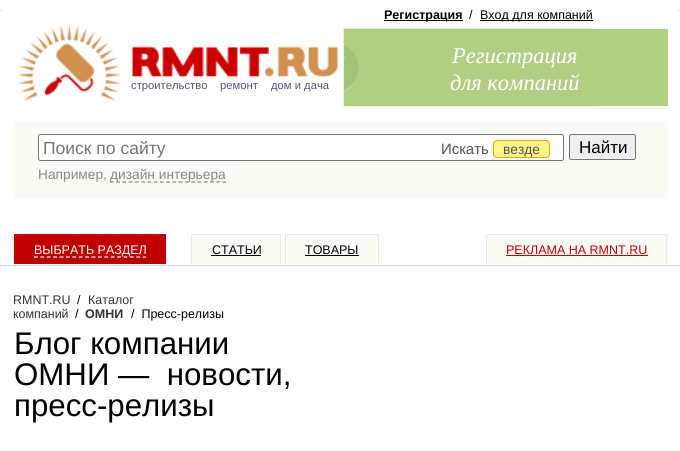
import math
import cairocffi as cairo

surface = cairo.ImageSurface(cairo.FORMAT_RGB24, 680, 451)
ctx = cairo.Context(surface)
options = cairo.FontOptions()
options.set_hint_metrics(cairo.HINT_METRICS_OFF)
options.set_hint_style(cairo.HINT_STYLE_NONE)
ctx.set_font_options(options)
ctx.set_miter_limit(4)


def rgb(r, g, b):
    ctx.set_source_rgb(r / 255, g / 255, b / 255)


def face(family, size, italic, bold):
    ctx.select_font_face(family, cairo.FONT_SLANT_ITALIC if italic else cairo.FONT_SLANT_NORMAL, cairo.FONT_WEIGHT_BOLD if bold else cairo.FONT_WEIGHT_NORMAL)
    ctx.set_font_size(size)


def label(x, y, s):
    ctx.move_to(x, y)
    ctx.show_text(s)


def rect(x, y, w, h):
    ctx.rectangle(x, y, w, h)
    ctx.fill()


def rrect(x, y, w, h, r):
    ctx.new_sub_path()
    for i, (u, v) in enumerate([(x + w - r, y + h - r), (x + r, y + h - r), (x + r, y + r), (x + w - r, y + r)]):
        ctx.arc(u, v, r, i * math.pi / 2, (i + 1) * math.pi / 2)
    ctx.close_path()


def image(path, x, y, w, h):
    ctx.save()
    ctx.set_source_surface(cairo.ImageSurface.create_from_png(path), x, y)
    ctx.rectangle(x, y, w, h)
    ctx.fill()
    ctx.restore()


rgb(255, 255, 255)
ctx.paint()
image('image0.png', 0, 9, 4, 4)
rgb(177, 207, 131)
rect(592, 29, 76, 77)
image('image2.png', 343, 28, 250, 79)
image('image1.png', 18, 25, 326, 82)
face('Liberation Sans', 11.25, 0, 0)
rgb(79, 87, 114)
label(131, 89, 'строительство')
label(220, 89, 'ремонт')
label(271, 89, 'дом и дача')
rgb(0, 0, 0)
rect(384, 20, 79, 1)
face('Liberation Sans', 12.5, 0, 1)
label(384, 19, 'Регистрация')
face('Liberation Sans', 12.5, 0, 0)
label(469, 19, '/')
rect(480, 20, 113, 1)
label(480, 19, 'Вход для компаний')
face('Liberation Serif', 22.5, 1, 0)
rgb(255, 255, 255)
label(452, 63, 'Регистрация')
label(450, 90, 'для компаний')
rgb(251, 251, 245)
rect(13, 121, 655, 78)
rgb(255, 255, 255)
rrect(38.5, 134.5, 525, 26, 2)
ctx.fill_preserve()
rgb(118, 118, 118)
ctx.set_line_width(1)
ctx.stroke()
face('Liberation Sans', 17.5, 0, 0)
rgb(117, 117, 117)
label(43, 154, 'Поиск по сайту')
face('Liberation Sans', 15, 0, 0)
rgb(85, 85, 85)
label(441, 154, 'Искать')
rgb(255, 247, 140)
rrect(493.5, 140.5, 56, 17, 3.5)
ctx.fill_preserve()
rgb(255, 165, 0)
ctx.stroke()
face('Liberation Sans', 13.75, 0, 0)
rgb(85, 85, 85)
label(503, 154, 'везде')
rgb(239, 239, 239)
rrect(569.5, 134.5, 66, 25, 2)
ctx.fill_preserve()
rgb(118, 118, 118)
ctx.stroke()
face('Liberation Sans', 17, 0, 0)
rgb(0, 0, 0)
label(579, 153, 'Найти')
face('Liberation Sans', 13.75, 0, 0)
rgb(136, 136, 136)
label(38, 179, 'Например,')
ctx.new_path()
ctx.move_to(110, 182)
ctx.line_to(226, 182)
ctx.set_line_width(1.2)
ctx.set_dash([3.75, 2.5])
ctx.stroke()
label(110, 179, 'дизайн интерьера')
rgb(217, 217, 211)
rect(0, 265, 680, 1)
rgb(191, 0, 0)
rect(14, 234, 152, 30)
ctx.new_path()
ctx.move_to(34, 257)
ctx.line_to(146, 257)
rgb(255, 255, 255)
ctx.set_dash([3.75, 2.65])
ctx.stroke()
face('Liberation Sans', 12.5, 0, 0)
label(34, 254, 'ВЫБРАТЬ РАЗДЕЛ')
rgb(251, 251, 245)
rect(192, 235, 88, 29)
rgb(234, 234, 228)
rect(191, 234, 90, 1)
rect(280, 234, 1, 30)
rect(191, 234, 1, 30)
rgb(0, 0, 0)
label(212, 254, 'СТАТЬИ')
rect(211, 255, 50, 1)
rgb(251, 251, 245)
rect(286, 235, 92, 29)
rgb(234, 234, 228)
rect(285, 234, 94, 1)
rect(378, 234, 1, 30)
rect(285, 234, 1, 30)
rgb(0, 0, 0)
label(305, 254, 'ТОВАРЫ')
rect(305, 255, 54, 1)
rgb(251, 251, 245)
rect(487, 235, 181, 29)
rgb(234, 234, 228)
rect(486, 234, 182, 1)
rect(666, 234, 1, 30)
rect(486, 234, 1, 30)
rgb(191, 0, 0)
label(506, 254, 'РЕКЛАМА НА RMNT.RU')
rect(506, 255, 142, 1)
rgb(51, 51, 51)
label(13, 304, 'RMNT.RU')
rgb(0, 0, 0)
label(77, 304, '/')
rgb(51, 51, 51)
label(88, 304, 'Каталог')
label(13, 318, 'компаний')
rgb(0, 0, 0)
label(75, 318, '/')
face('Liberation Sans', 12.5, 0, 1)
rgb(51, 51, 51)
label(85, 318, 'ОМНИ')
face('Liberation Sans', 12.5, 0, 0)
rgb(0, 0, 0)
label(131, 318, '/  Пресс-релизы')
face('Liberation Sans', 31.25, 0, 0)
label(14, 354, 'Блог компании')
label(14, 385, 'ОМНИ —  новости,')
label(14, 416, 'пресс-релизы')
image('image3.png', 676, 9, 4, 4)
surface.write_to_png('render.png')
